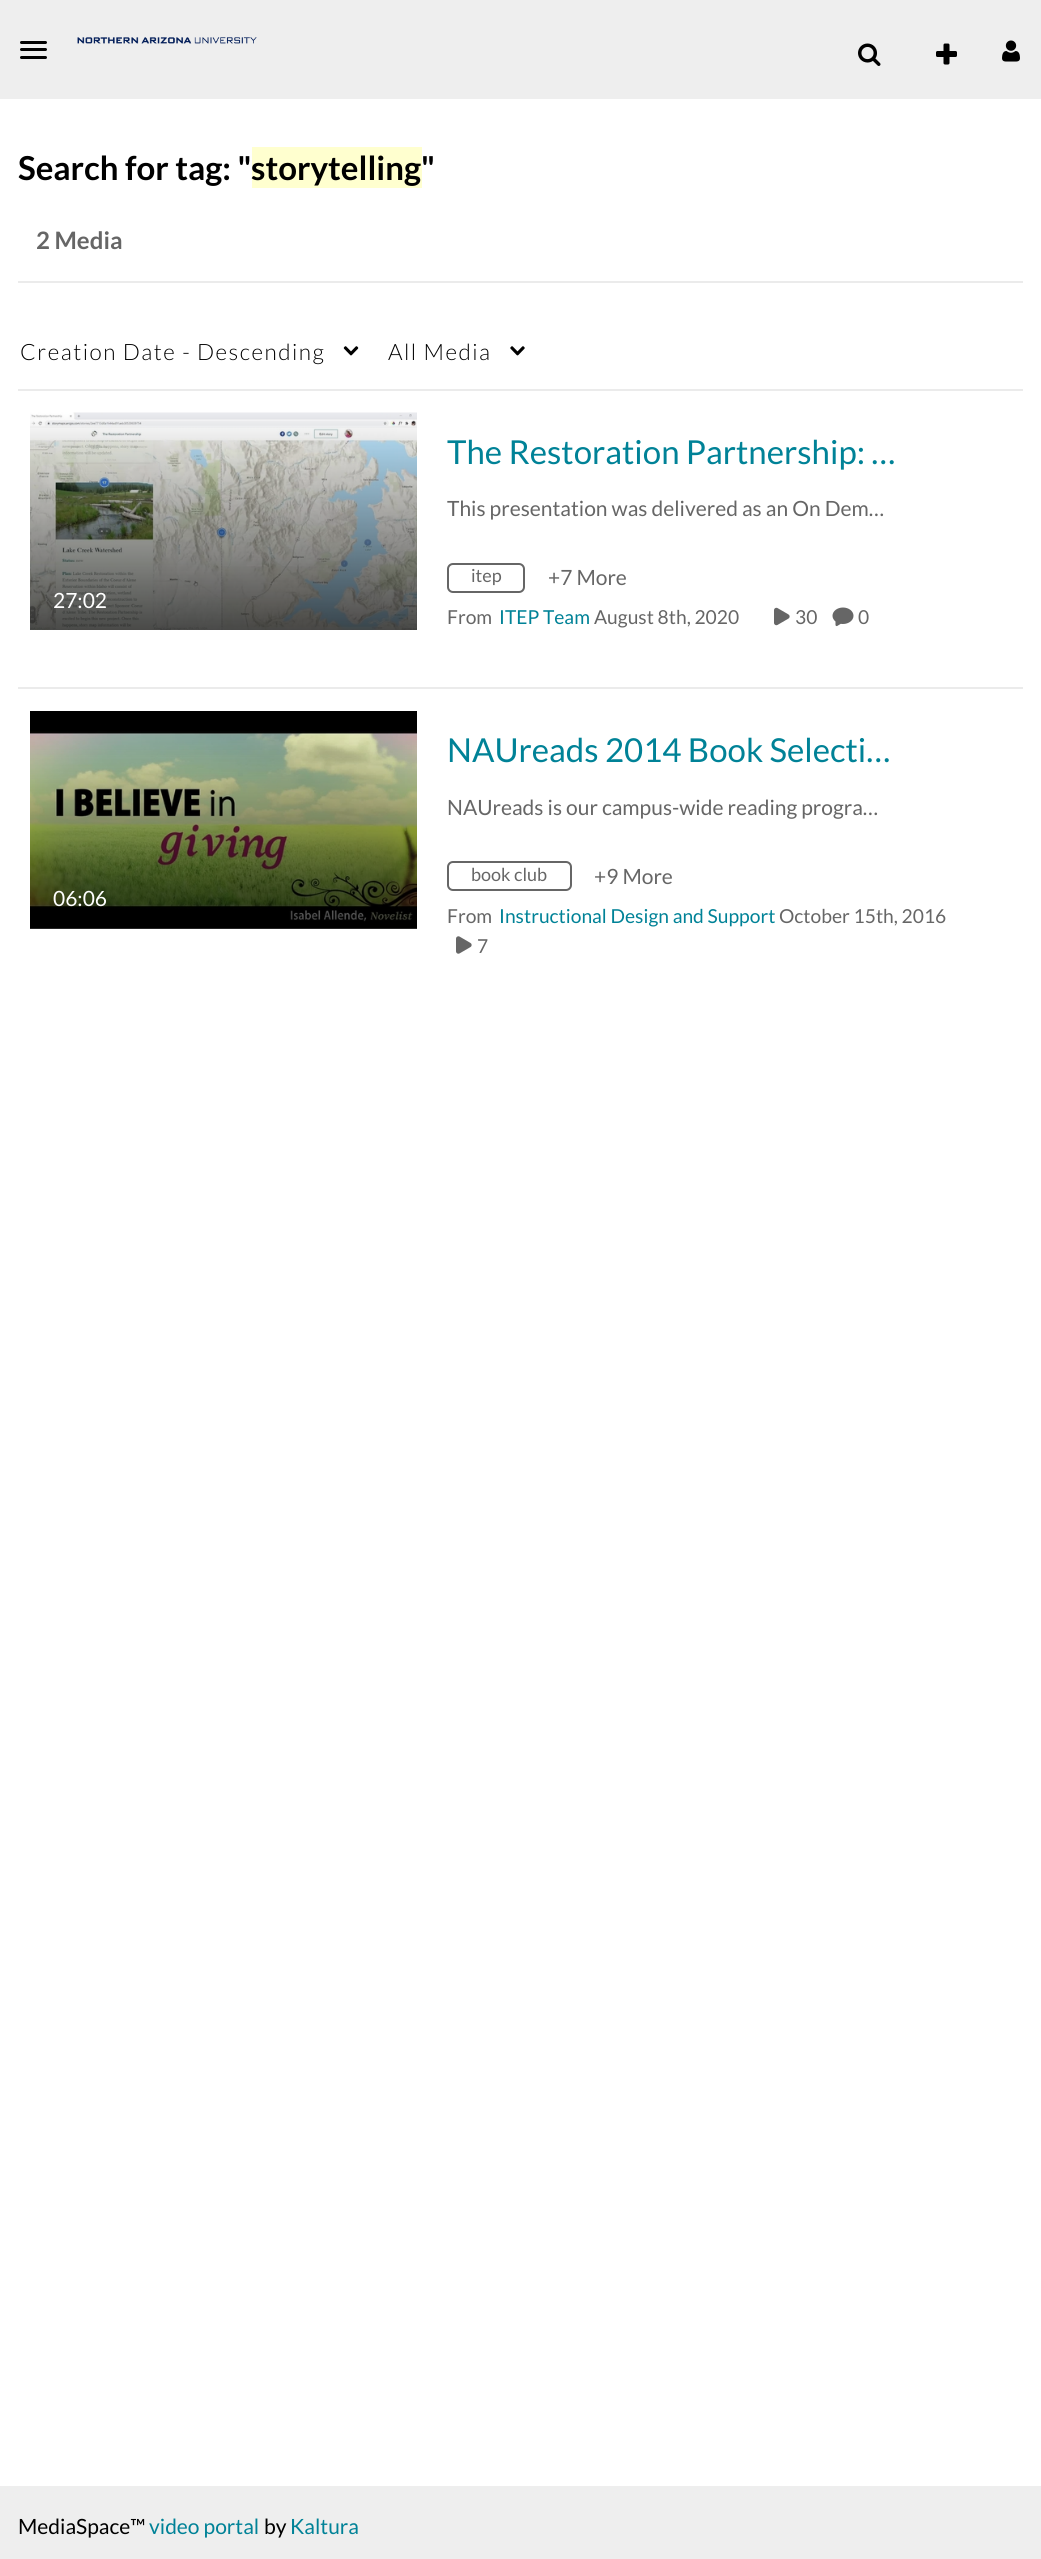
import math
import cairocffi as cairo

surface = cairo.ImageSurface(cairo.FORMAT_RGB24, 1041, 2559)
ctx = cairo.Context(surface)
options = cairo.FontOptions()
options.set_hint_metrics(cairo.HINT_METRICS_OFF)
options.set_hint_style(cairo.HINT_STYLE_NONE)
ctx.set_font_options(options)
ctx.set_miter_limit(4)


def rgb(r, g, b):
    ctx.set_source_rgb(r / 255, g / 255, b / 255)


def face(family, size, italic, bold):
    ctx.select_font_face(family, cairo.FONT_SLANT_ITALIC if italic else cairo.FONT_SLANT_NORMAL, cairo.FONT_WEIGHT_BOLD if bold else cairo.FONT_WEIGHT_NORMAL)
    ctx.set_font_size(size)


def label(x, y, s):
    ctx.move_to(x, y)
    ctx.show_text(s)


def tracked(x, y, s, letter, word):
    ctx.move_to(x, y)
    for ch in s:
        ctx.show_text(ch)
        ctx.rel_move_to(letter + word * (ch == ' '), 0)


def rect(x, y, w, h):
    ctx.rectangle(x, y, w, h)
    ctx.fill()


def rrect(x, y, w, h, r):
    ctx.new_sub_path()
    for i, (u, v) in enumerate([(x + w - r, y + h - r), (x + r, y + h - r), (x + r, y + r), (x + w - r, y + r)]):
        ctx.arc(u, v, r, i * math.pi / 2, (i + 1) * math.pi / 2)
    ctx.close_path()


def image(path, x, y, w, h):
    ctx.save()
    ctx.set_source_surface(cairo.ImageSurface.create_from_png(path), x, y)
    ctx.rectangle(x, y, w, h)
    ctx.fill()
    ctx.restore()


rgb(255, 255, 255)
ctx.paint()
rgb(238, 238, 238)
rect(0, 0, 1041, 99)
rgb(0, 0, 0)
rrect(20, 41, 27, 3, 1.5)
ctx.fill()
rrect(20, 48, 27, 3, 1.5)
ctx.fill()
rrect(20, 56, 27, 3, 1.5)
ctx.fill()
image('image0.png', 77, 37, 180, 7)
image('image1.png', 858, 43, 23, 23)
image('image2.png', 936, 43, 21, 22)
image('image3.png', 1002, 40, 18, 22)
face('Lato', 33, 0, 1)
label(18, 180, 'Search for tag: "')
rgb(255, 255, 207)
rect(252, 147, 170, 41)
rgb(0, 0, 0)
label(251, 180, 'storytelling"')
rgb(235, 235, 235)
rect(18, 281, 1005, 2)
face('Lato', 24, 0, 1)
rgb(102, 102, 102)
label(36, 249, '2 Media')
face('Lato Light', 22.5, 0, 0)
rgb(0, 0, 0)
tracked(20, 360, 'Creation Date - Descending', 1.5, 0)
image('image4.png', 343, 346, 16, 10)
tracked(388, 360, 'All Media', 1.5, 0)
image('image5.png', 510, 346, 15, 10)
image('image6.png', 30, 412, 387, 218)
face('Lato', 21, 0, 0)
rgb(255, 255, 255)
label(53, 608, '27:02')
rgb(235, 235, 235)
rect(18, 389, 1005, 2)
face('Lato', 33, 0, 0)
rgb(0, 130, 151)
label(447, 464, 'The Restoration Partnership: …')
face('Lato', 21, 0, 0)
rgb(102, 102, 102)
label(447, 516, 'This presentation was delivered as an On Dem…')
rrect(448, 564, 76, 28, 5)
ctx.stroke()
face('Lato', 18, 0, 0)
label(471, 582, 'itep')
face('Lato', 21, 0, 0)
label(548, 585, '+7 More')
face('Lato', 19.25, 0, 0)
label(447, 624, 'From')
rgb(0, 130, 151)
label(499, 624, 'ITEP Team')
rgb(102, 102, 102)
label(594, 624, 'August 8th, 2020')
image('image7.png', 774, 607, 16, 19)
label(795, 624, '30')
image('image8.png', 832, 607, 22, 20)
label(858, 624, '0')
image('image9.png', 30, 711, 387, 218)
gradient = cairo.LinearGradient(224, 711, 224, 929)
gradient.add_color_stop_rgba(0, 0, 0, 0, 0)
gradient.add_color_stop_rgba(1, 0, 0, 0, 0.7)
ctx.set_source(gradient)
rect(30, 733, 387, 196)
face('Lato', 21, 0, 0)
rgb(255, 255, 255)
label(53, 906, '06:06')
rgb(235, 235, 235)
rect(18, 687, 1005, 2)
face('Lato', 33, 0, 0)
rgb(0, 130, 151)
label(447, 762, 'NAUreads 2014 Book Selecti…')
face('Lato', 21, 0, 0)
rgb(102, 102, 102)
label(447, 815, 'NAUreads is our campus-wide reading progra…')
rrect(448, 862, 123, 28, 5)
ctx.stroke()
face('Lato', 18, 0, 0)
label(471, 881, 'book club')
face('Lato', 21, 0, 0)
label(594, 884, '+9 More')
face('Lato', 19.25, 0, 0)
label(447, 923, 'From')
rgb(0, 130, 151)
label(499, 923, 'Instructional Design and Support')
rgb(102, 102, 102)
label(779, 923, 'October 15th, 2016')
image('image10.png', 456, 936, 16, 18)
label(477, 953, '7')
rgb(238, 238, 238)
rect(0, 2486, 1041, 73)
face('Lato', 21, 0, 0)
rgb(0, 0, 0)
label(18, 2534, 'MediaSpace™')
rgb(0, 130, 151)
label(149, 2534, 'video portal')
rgb(0, 0, 0)
label(264, 2534, 'by')
rgb(0, 130, 151)
label(290, 2534, 'Kaltura')
surface.write_to_png('render.png')
